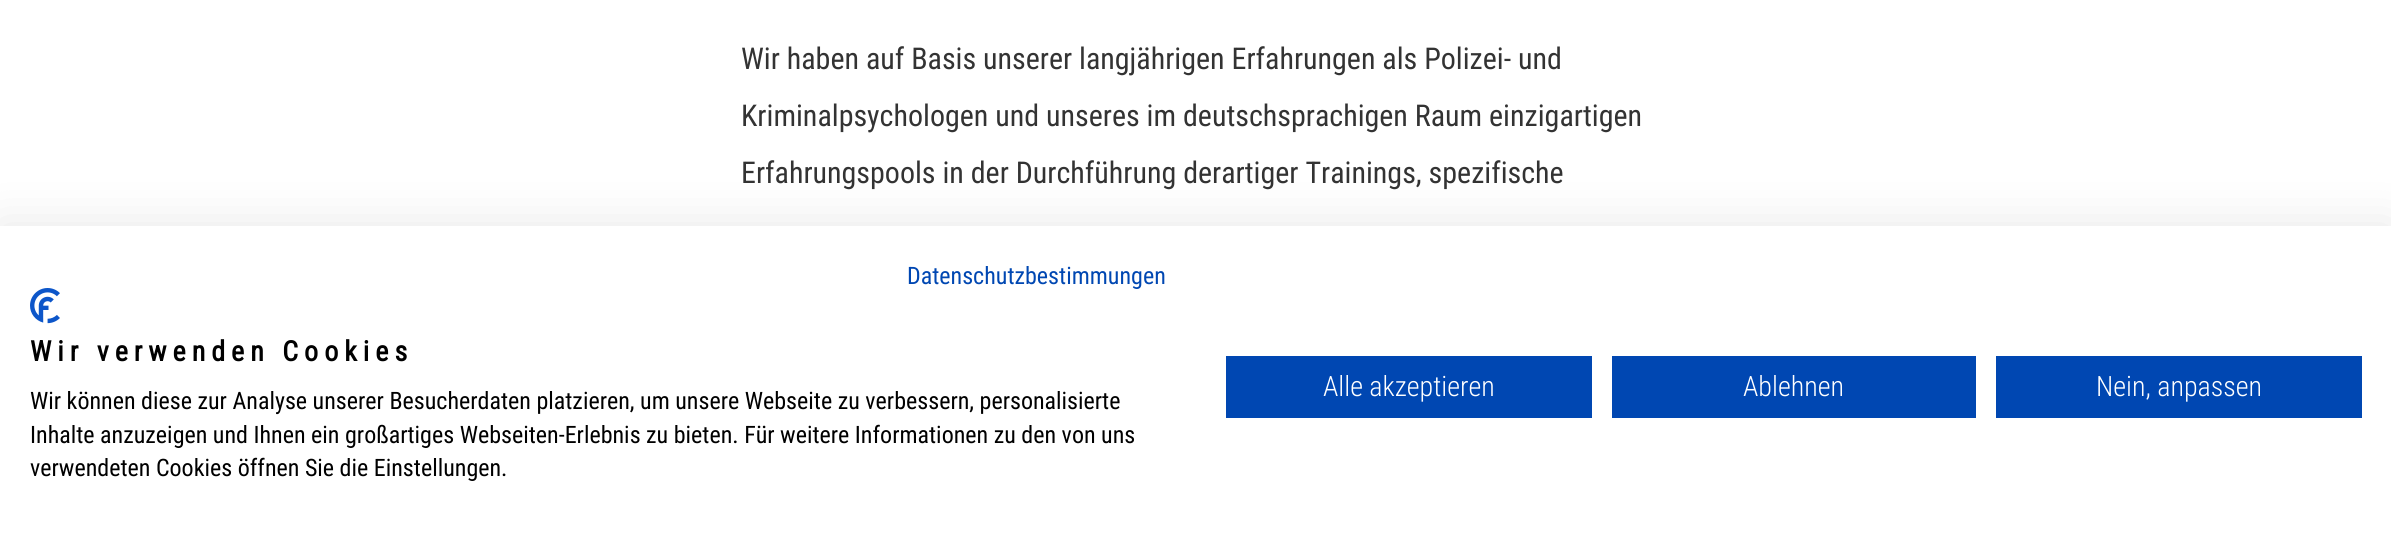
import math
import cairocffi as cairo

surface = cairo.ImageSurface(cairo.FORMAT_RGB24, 2391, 540)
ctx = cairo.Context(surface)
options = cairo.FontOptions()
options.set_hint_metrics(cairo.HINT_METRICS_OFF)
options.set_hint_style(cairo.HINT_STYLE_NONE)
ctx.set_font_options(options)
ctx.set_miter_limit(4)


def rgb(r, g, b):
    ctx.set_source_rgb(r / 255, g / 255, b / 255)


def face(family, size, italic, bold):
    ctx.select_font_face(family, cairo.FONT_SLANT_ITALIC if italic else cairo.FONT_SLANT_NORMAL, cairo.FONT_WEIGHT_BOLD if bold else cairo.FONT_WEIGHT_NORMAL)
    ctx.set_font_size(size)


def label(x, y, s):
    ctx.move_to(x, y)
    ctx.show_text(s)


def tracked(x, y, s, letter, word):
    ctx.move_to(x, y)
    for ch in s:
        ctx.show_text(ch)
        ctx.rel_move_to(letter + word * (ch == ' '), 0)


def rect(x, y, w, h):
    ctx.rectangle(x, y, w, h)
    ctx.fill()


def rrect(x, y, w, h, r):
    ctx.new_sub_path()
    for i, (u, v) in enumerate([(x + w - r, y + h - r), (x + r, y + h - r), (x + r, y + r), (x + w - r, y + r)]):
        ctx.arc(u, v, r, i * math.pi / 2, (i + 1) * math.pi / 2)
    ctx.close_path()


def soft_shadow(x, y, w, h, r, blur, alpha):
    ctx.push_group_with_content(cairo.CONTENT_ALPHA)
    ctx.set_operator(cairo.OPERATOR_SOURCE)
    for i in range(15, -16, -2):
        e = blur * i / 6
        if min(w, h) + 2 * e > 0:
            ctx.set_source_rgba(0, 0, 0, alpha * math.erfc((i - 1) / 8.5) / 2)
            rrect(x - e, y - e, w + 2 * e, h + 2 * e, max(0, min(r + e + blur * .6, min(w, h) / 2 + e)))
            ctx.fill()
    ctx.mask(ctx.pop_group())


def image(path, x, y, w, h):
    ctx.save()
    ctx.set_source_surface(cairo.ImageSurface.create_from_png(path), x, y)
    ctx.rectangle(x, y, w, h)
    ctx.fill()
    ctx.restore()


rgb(255, 255, 255)
ctx.paint()
face('Roboto Condensed', 30, 0, 0)
rgb(51, 51, 51)
label(741, 69, 'Wir haben auf Basis unserer langjährigen Erfahrungen als Polizei- und')
label(741, 126, 'Kriminalpsychologen und unseres im deutschsprachigen Raum einzigartigen')
label(741, 183, 'Erfahrungspools in der Durchführung derartiger Trainings, spezifische')
rgb(0, 0, 0)
soft_shadow(0, 226, 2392, 314, 0, 24, 0.1)
rgb(255, 255, 255)
rect(0, 226, 2391, 314)
face('Roboto Condensed', 24, 0, 0)
rgb(0, 71, 178)
label(907, 284, 'Datenschutzbestimmungen')
image('image0.png', 30, 288, 30, 36)
face('Roboto Condensed', 28, 0, 1)
rgb(0, 0, 0)
tracked(30, 361, 'Wir verwenden Cookies', 6, 0)
face('Roboto Condensed', 24, 0, 0)
label(30, 409, 'Wir können diese zur Analyse unserer Besucherdaten platzieren, um unsere Webseite zu verbessern, personalisierte')
label(30, 443, 'Inhalte anzuzeigen und Ihnen ein großartiges Webseiten-Erlebnis zu bieten. Für weitere Informationen zu den von uns')
label(30, 476, 'verwendeten Cookies öffnen Sie die Einstellungen.')
rgb(0, 71, 178)
rect(1226, 356, 366, 62)
face('Roboto Condensed Light', 28, 0, 0)
rgb(255, 255, 255)
label(1323, 396, 'Alle akzeptieren')
rgb(0, 71, 178)
rect(1612, 356, 364, 62)
rgb(255, 255, 255)
label(1743, 396, 'Ablehnen')
rgb(0, 71, 178)
rect(1996, 356, 366, 62)
rgb(255, 255, 255)
label(2096, 396, 'Nein, anpassen')
surface.write_to_png('render.png')
